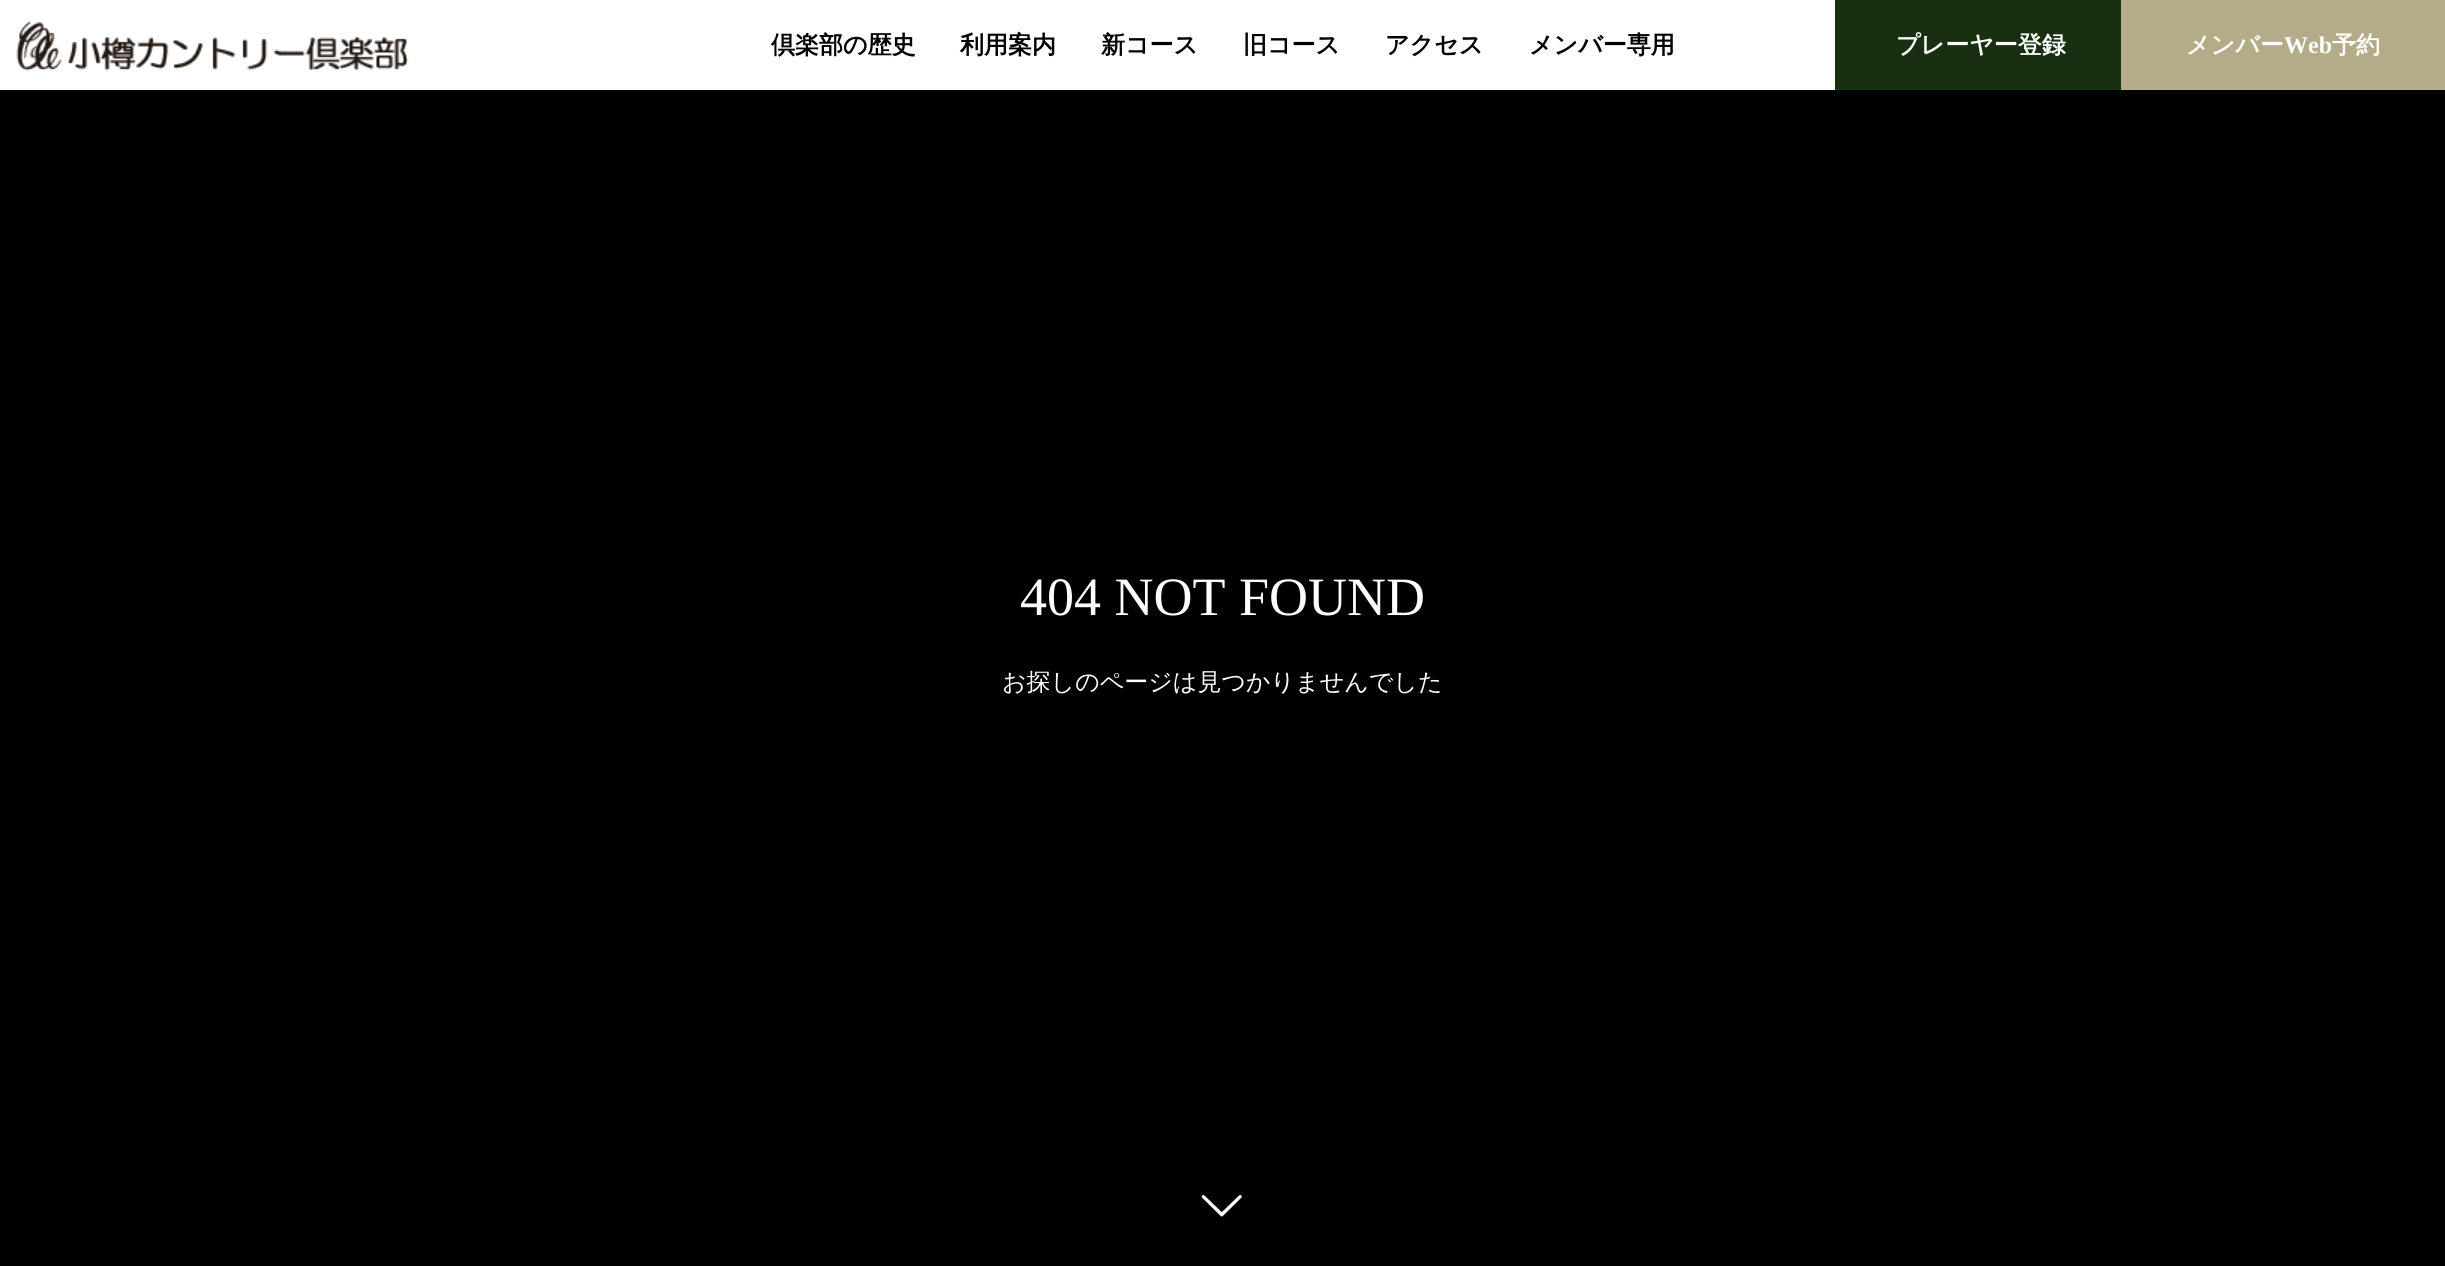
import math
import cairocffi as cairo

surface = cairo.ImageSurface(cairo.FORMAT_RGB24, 2445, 1266)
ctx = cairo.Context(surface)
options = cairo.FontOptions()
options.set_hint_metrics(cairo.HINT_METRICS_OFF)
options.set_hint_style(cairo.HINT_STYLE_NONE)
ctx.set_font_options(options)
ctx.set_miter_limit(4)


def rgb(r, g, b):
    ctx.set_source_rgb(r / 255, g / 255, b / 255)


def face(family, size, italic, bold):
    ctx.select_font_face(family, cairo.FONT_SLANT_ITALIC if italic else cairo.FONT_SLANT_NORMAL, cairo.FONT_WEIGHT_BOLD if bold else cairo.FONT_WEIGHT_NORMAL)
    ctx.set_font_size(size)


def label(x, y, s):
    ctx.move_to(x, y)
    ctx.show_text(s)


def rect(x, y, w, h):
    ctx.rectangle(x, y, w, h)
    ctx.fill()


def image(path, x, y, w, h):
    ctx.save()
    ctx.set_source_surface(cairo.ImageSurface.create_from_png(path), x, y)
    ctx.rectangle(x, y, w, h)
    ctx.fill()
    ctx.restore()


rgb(0, 0, 0)
ctx.paint()
rgb(255, 255, 255)
rect(0, 0, 1835, 90)
image('image0.png', 16, 21, 393, 50)
face('WenQuanYi Zen Hei', 24, 0, 1)
rgb(0, 0, 0)
label(771, 53, '倶楽部の歴史')
label(960, 53, '利用案内')
label(1101, 53, '新コース')
label(1243, 53, '旧コース')
label(1385, 53, 'アクセス')
label(1529, 53, 'メンバー専用')
rgb(24, 47, 18)
rect(1835, 0, 286, 90)
rgb(255, 255, 255)
label(1896, 53, 'プレーヤー登録')
rgb(180, 172, 136)
rect(2121, 0, 324, 90)
rgb(255, 255, 255)
label(2186, 53, 'メンバー')
face('Liberation Serif', 24, 0, 1)
label(2284, 53, 'Web')
face('WenQuanYi Zen Hei', 24, 0, 1)
label(2332, 53, '予約')
face('Liberation Serif', 54, 0, 0)
label(1020, 615, '404 NOT FOUND')
face('WenQuanYi Zen Hei Medium', 24, 0, 0)
label(1002, 690, 'お探しのページは見つかりませんでした')
image('image1.png', 1201, 1195, 41, 22)
surface.write_to_png('render.png')
